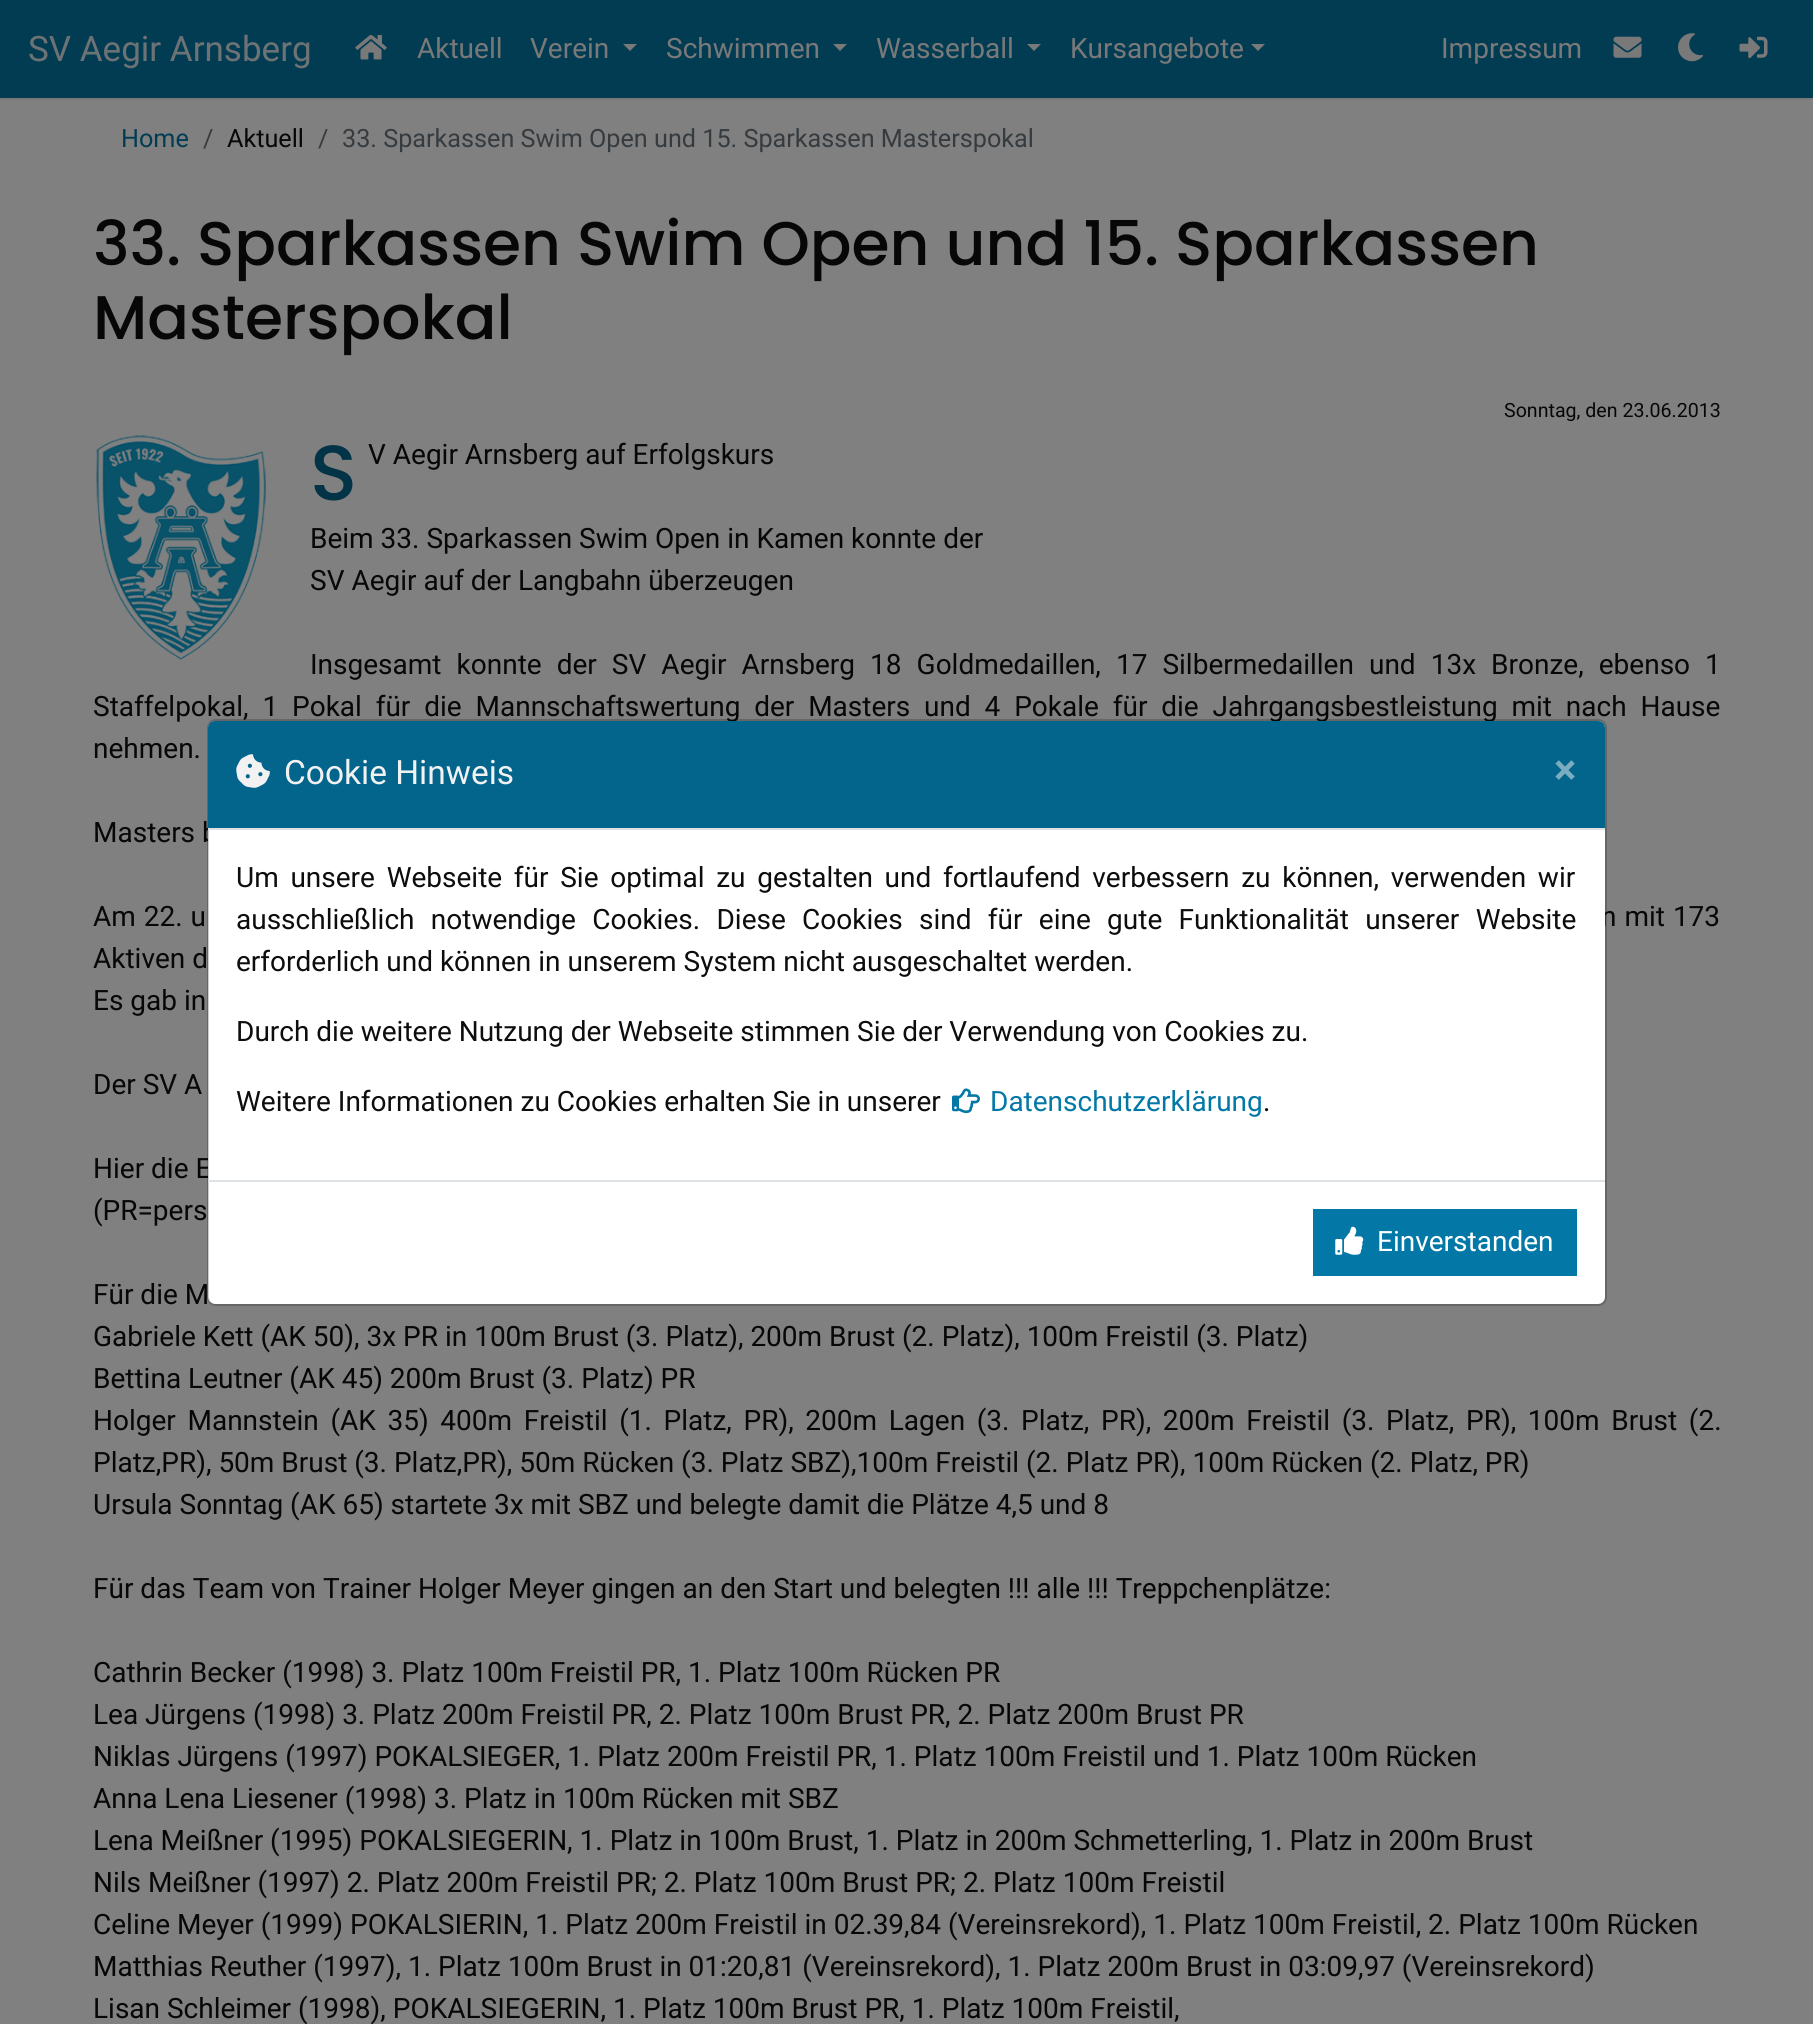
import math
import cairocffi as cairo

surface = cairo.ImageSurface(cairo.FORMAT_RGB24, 1813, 2024)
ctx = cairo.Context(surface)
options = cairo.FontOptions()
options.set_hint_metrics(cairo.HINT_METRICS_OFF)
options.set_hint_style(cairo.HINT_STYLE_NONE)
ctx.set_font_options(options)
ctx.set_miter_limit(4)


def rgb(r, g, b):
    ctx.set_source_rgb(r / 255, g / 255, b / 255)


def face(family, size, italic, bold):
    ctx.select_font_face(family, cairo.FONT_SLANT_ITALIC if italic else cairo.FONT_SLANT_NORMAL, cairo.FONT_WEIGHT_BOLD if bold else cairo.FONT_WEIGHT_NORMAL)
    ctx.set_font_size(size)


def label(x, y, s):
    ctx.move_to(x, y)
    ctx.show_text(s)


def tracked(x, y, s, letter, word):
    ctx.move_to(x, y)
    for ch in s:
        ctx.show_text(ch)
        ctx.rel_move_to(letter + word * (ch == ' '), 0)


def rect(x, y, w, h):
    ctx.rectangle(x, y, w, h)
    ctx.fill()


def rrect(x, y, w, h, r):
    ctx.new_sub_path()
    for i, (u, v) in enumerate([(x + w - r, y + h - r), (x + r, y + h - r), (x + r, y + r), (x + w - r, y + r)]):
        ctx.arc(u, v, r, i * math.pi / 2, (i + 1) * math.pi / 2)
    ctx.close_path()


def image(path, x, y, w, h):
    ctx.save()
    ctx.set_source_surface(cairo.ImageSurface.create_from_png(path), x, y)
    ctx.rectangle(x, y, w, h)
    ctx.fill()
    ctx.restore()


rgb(128, 128, 128)
ctx.paint()
rgb(2, 60, 83)
rect(0, 0, 1813, 98)
rgb(121, 121, 121)
rect(0, 98, 1813, 2)
face('Roboto', 35, 0, 0)
rgb(109, 115, 117)
label(28, 61, 'SV Aegir Arnsberg')
image('image0.png', 355, 35, 32, 25)
face('Roboto', 28, 0, 0)
rgb(121, 121, 121)
label(417, 58, 'Aktuell')
label(530, 58, 'Verein')
ctx.new_path()
ctx.move_to(623, 44)
ctx.line_to(637, 44)
ctx.line_to(630, 51)
ctx.close_path()
ctx.fill()
label(666, 58, 'Schwimmen')
ctx.new_path()
ctx.move_to(833, 44)
ctx.line_to(847, 44)
ctx.line_to(840, 51)
ctx.close_path()
ctx.fill()
label(876, 58, 'Wasserball')
ctx.new_path()
ctx.move_to(1027, 44)
ctx.line_to(1041, 44)
ctx.line_to(1034, 51)
ctx.close_path()
ctx.fill()
label(1070, 58, 'Kursangebote')
ctx.new_path()
ctx.move_to(1251, 44)
ctx.line_to(1265, 44)
ctx.line_to(1258, 51)
ctx.close_path()
ctx.fill()
label(1441, 58, 'Impressum')
image('image1.png', 1613, 36, 29, 22)
image('image2.png', 1678, 33, 25, 29)
image('image3.png', 1739, 36, 29, 23)
face('Roboto', 25.2, 0, 0)
rgb(2, 60, 83)
label(121, 147, 'Home')
rgb(54, 59, 63)
label(203, 147, '/')
rgb(7, 7, 7)
label(227, 147, 'Aktuell')
rgb(54, 59, 63)
label(318, 147, '/')
label(342, 147, '33. Sparkassen Swim Open und 15. Sparkassen Masterspokal')
face('Poppins Medium', 61.6, 0, 0)
rgb(7, 7, 7)
label(93, 265, '33. Sparkassen Swim Open und 15. Sparkassen')
label(93, 339, 'Masterspokal')
face('Roboto', 19.6, 0, 0)
label(1504, 417, 'Sonntag, den 23.06.2013')
image('image4.png', 96, 435, 170, 225)
face('Poppins Medium', 78, 0, 0)
rgb(2, 51, 70)
label(310, 500, 'S')
face('Roboto', 28, 0, 0)
rgb(7, 7, 7)
label(368, 464, 'V Aegir Arnsberg auf Erfolgskurs')
label(310, 548, 'Beim 33. Sparkassen Swim Open in Kamen konnte der')
label(310, 590, 'SV Aegir auf der Langbahn überzeugen')
tracked(310, 674, 'Insgesamt konnte der SV Aegir Arnsberg 18 Goldmedaillen, 17 Silbermedaillen und 13x Bronze, ebenso 1', 0, 8.1)
tracked(93, 716, 'Staffelpokal, 1 Pokal für die Mannschaftswertung der Masters und 4 Pokale für die Jahrgangsbestleistung mit nach Hause', 0, 6.9)
label(93, 758, 'nehmen.')
label(93, 842, 'Masters b')
tracked(93, 926, 'Am 22. u', 0, 1)
tracked(1601, 926, 'n mit 173', 0, 1)
label(93, 968, 'Aktiven d')
label(93, 1010, 'Es gab in')
label(93, 1094, 'Der SV A')
label(93, 1178, 'Hier die E')
label(93, 1220, '(PR=pers')
label(93, 1304, 'Für die M')
label(93, 1346, 'Gabriele Kett (AK 50), 3x PR in 100m Brust (3. Platz), 200m Brust (2. Platz), 100m Freistil (3. Platz)')
label(93, 1388, 'Bettina Leutner (AK 45) 200m Brust (3. Platz) PR')
tracked(93, 1430, 'Holger Mannstein (AK 35) 400m Freistil (1. Platz, PR), 200m Lagen (3. Platz, PR), 200m Freistil (3. Platz, PR), 100m Brust (2.', 0, 4.7)
label(93, 1472, 'Platz,PR), 50m Brust (3. Platz,PR), 50m Rücken (3. Platz SBZ),100m Freistil (2. Platz PR), 100m Rücken (2. Platz, PR)')
label(93, 1514, 'Ursula Sonntag (AK 65) startete 3x mit SBZ und belegte damit die Plätze 4,5 und 8')
label(93, 1598, 'Für das Team von Trainer Holger Meyer gingen an den Start und belegten !!! alle !!! Treppchenplätze:')
label(93, 1682, 'Cathrin Becker (1998) 3. Platz 100m Freistil PR, 1. Platz 100m Rücken PR')
label(93, 1724, 'Lea Jürgens (1998) 3. Platz 200m Freistil PR, 2. Platz 100m Brust PR, 2. Platz 200m Brust PR')
label(93, 1766, 'Niklas Jürgens (1997) POKALSIEGER, 1. Platz 200m Freistil PR, 1. Platz 100m Freistil und 1. Platz 100m Rücken')
label(93, 1808, 'Anna Lena Liesener (1998) 3. Platz in 100m Rücken mit SBZ')
label(93, 1850, 'Lena Meißner (1995) POKALSIEGERIN, 1. Platz in 100m Brust, 1. Platz in 200m Schmetterling, 1. Platz in 200m Brust')
label(93, 1892, 'Nils Meißner (1997) 2. Platz 200m Freistil PR; 2. Platz 100m Brust PR; 2. Platz 100m Freistil')
label(93, 1934, 'Celine Meyer (1999) POKALSIERIN, 1. Platz 200m Freistil in 02.39,84 (Vereinsrekord), 1. Platz 100m Freistil, 2. Platz 100m Rücken')
label(93, 1976, 'Matthias Reuther (1997), 1. Platz 100m Brust in 01:20,81 (Vereinsrekord), 1. Platz 200m Brust in 03:09,97 (Vereinsrekord)')
label(93, 2018, 'Lisan Schleimer (1998), POKALSIEGERIN, 1. Platz 100m Brust PR, 1. Platz 100m Freistil,')
rgb(255, 255, 255)
rrect(208, 721, 1397, 583, 7)
ctx.fill()
rrect(208, 720, 1398, 585, 8)
ctx.set_source_rgba(0, 0, 0, 0.2)
ctx.stroke()
rgb(3, 101, 140)
ctx.new_path()
ctx.move_to(215, 721)
ctx.line_to(1598, 721)
ctx.curve_to(1602, 721, 1605, 724, 1605, 728)
ctx.line_to(1605, 830)
ctx.line_to(208, 830)
ctx.line_to(208, 728)
ctx.curve_to(208, 724, 211, 721, 215, 721)
ctx.close_path()
ctx.fill()
rgb(222, 226, 230)
rect(208, 828, 1397, 2)
image('image5.png', 236, 754, 34, 34)
face('Roboto', 33.5, 0, 0)
rgb(242, 242, 242)
label(284, 784, 'Cookie Hinweis')
face('Roboto', 42, 0, 1)
rgb(123, 172, 191)
label(1554, 784, '×')
face('Roboto', 28, 0, 0)
rgb(13, 13, 13)
tracked(236, 887, 'Um unsere Webseite für Sie optimal zu gestalten und fortlaufend verbessern zu können, verwenden wir', 0, 4.75)
tracked(236, 929, 'ausschließlich notwendige Cookies. Diese Cookies sind für eine gute Funktionalität unserer Website', 0, 9.4)
label(236, 971, 'erforderlich und können in unserem System nicht ausgeschaltet werden.')
label(236, 1041, 'Durch die weitere Nutzung der Webseite stimmen Sie der Verwendung von Cookies zu.')
label(236, 1111, 'Weitere Informationen zu Cookies erhalten Sie in unserer')
image('image6.png', 952, 1088, 28, 25)
rgb(3, 120, 166)
label(990, 1111, 'Datenschutzerklärung')
rgb(13, 13, 13)
label(1263, 1111, '.')
rgb(222, 226, 230)
rect(208, 1180, 1397, 2)
rgb(3, 120, 166)
rect(1313, 1209, 264, 67)
image('image7.png', 1335, 1226, 29, 29)
rgb(255, 255, 255)
label(1377, 1251, 'Einverstanden')
surface.write_to_png('render.png')
